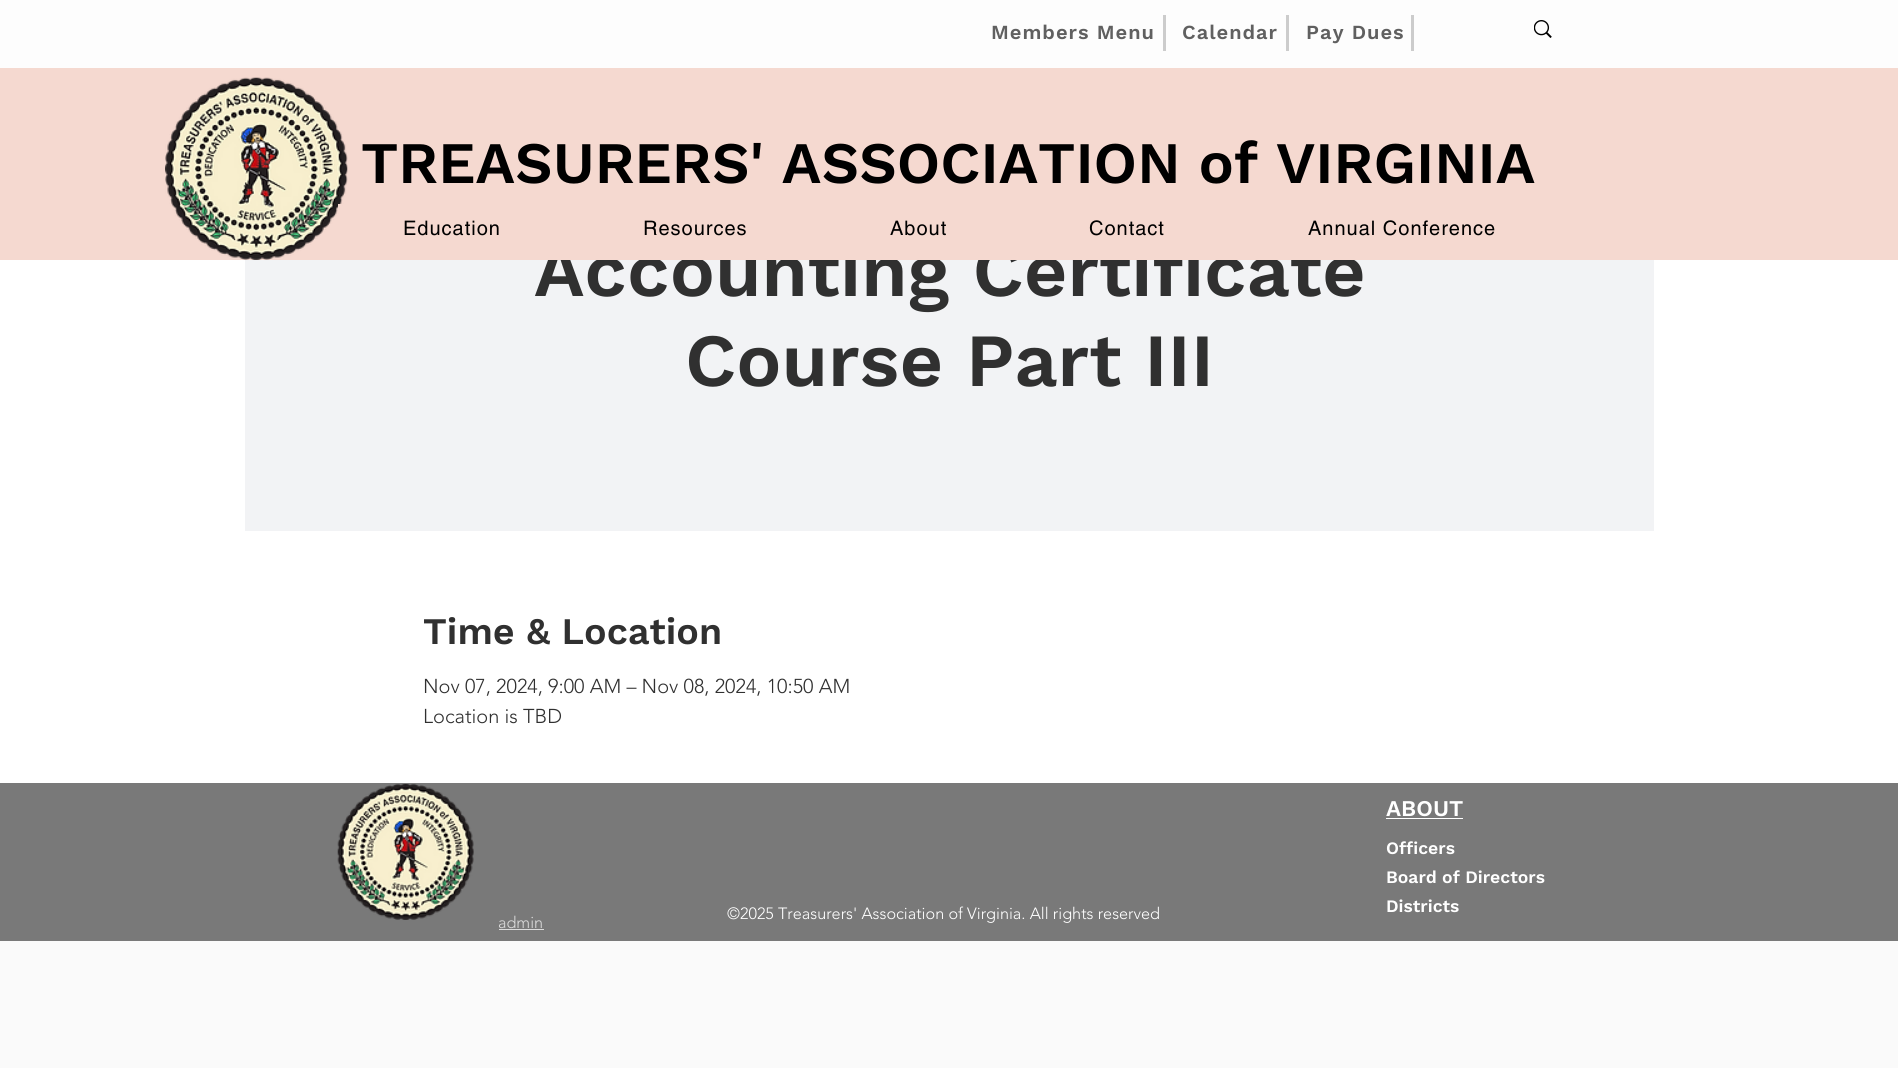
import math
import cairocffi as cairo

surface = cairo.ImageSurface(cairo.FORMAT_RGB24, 1898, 1068)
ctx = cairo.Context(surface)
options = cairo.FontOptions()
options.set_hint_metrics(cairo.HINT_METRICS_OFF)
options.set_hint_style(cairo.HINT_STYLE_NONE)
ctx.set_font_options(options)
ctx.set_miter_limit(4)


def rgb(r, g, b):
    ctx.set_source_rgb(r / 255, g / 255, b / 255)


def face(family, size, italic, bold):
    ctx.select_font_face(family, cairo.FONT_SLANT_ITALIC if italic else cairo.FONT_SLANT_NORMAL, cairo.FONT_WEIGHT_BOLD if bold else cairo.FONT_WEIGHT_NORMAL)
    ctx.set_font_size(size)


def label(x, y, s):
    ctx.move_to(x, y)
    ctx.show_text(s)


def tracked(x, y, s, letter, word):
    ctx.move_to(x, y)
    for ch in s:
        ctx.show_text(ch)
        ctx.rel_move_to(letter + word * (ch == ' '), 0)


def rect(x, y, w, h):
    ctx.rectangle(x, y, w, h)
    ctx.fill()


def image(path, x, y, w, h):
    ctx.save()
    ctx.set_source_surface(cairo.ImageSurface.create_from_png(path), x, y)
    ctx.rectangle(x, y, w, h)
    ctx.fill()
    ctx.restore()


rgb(250, 250, 250)
ctx.paint()
rgb(253, 253, 253)
rect(0, 0, 1898, 68)
rgb(204, 204, 204)
rect(1163, 15, 3, 36)
face('Work Sans SemiBold', 20, 0, 0)
rgb(96, 96, 96)
tracked(991, 39, 'Members Menu', 1, 0)
rgb(204, 204, 204)
rect(1286, 15, 3, 36)
rgb(96, 96, 96)
tracked(1182, 39, 'Calendar', 1, 0)
rgb(204, 204, 204)
rect(1411, 15, 3, 36)
rgb(96, 96, 96)
tracked(1306, 39, 'Pay Dues', 1, 0)
image('image0.png', 1534, 20, 18, 18)
rgb(255, 255, 255)
rect(0, 260, 1898, 523)
rgb(242, 243, 245)
rect(245, 260, 1409, 271)
face('Work Sans SemiBold', 75, 0, 0)
rgb(48, 48, 48)
label(534, 296, 'Accounting Certificate')
rgb(245, 217, 208)
rect(0, 68, 1898, 192)
image('image1.png', 165, 77, 183, 183)
face('Work Sans SemiBold', 58.75, 0, 0)
rgb(0, 0, 0)
label(361, 183, 'TREASURERS\' ASSOCIATION of VIRGINIA')
rgb(245, 217, 208)
rect(338, 204, 4, 4)
face('helvetica', 20, 0, 0)
rgb(0, 0, 0)
tracked(403, 235, 'Education', 1, 0)
tracked(643, 235, 'Resources', 1, 0)
tracked(890, 235, 'About', 1, 0)
tracked(1089, 235, 'Contact', 1, 0)
tracked(1308, 235, 'Annual Conference', 1, 0)
face('Work Sans SemiBold', 75, 0, 0)
rgb(48, 48, 48)
label(685, 386, 'Course Part III')
face('Work Sans SemiBold', 37.5, 0, 0)
label(423, 644, 'Time & Location')
face('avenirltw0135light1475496 Light', 20, 0, 0)
label(423, 693, 'Nov 07, 2024, 9:00 AM – Nov 08, 2024, 10:50 AM')
label(423, 723, 'Location is TBD')
rgb(121, 121, 121)
rect(0, 783, 1898, 158)
image('image2.png', 337, 783, 137, 137)
face('Work Sans SemiBold', 22.5, 0, 0)
rgb(255, 255, 255)
label(1386, 816, 'ABOUT')
rect(1386, 818, 77, 1)
face('avenirltw0135light1475496 Light', 16.25, 0, 0)
rgb(219, 219, 219)
label(498, 928, 'admin')
rect(499, 929, 45, 1)
rgb(255, 255, 255)
label(727, 919, '©2025 Treasurers\' Association of Virginia. All rights reserved')
face('Work Sans SemiBold', 17.5, 0, 0)
label(1386, 854, 'Officers')
label(1386, 883, 'Board of Directors')
label(1386, 912, 'Districts')
surface.write_to_png('render.png')
